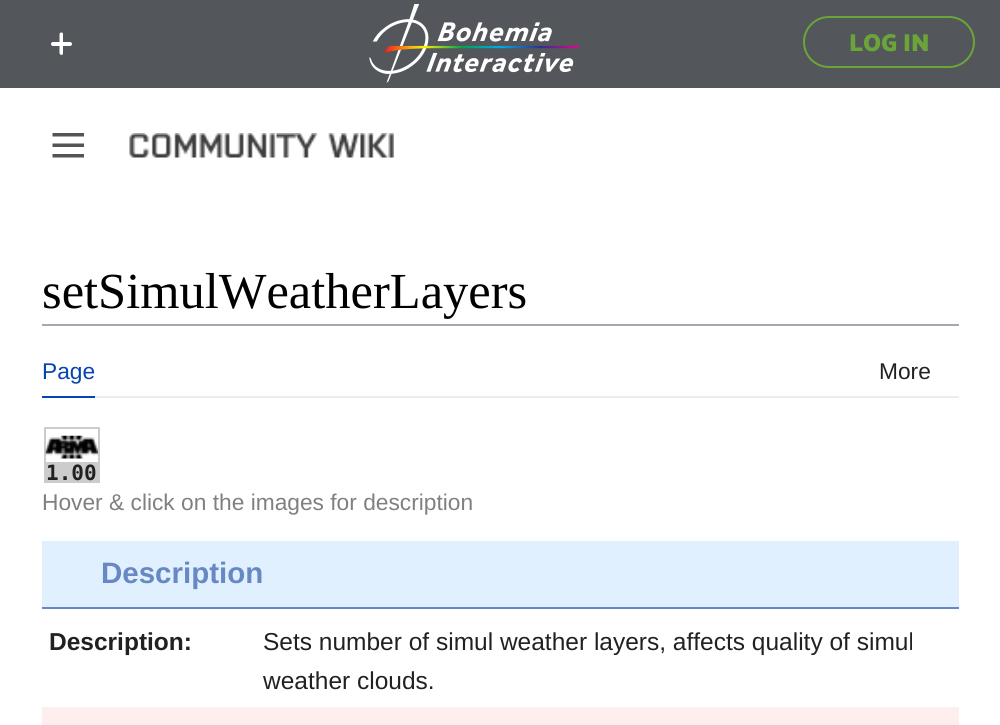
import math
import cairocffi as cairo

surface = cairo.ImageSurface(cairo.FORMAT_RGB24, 1000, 725)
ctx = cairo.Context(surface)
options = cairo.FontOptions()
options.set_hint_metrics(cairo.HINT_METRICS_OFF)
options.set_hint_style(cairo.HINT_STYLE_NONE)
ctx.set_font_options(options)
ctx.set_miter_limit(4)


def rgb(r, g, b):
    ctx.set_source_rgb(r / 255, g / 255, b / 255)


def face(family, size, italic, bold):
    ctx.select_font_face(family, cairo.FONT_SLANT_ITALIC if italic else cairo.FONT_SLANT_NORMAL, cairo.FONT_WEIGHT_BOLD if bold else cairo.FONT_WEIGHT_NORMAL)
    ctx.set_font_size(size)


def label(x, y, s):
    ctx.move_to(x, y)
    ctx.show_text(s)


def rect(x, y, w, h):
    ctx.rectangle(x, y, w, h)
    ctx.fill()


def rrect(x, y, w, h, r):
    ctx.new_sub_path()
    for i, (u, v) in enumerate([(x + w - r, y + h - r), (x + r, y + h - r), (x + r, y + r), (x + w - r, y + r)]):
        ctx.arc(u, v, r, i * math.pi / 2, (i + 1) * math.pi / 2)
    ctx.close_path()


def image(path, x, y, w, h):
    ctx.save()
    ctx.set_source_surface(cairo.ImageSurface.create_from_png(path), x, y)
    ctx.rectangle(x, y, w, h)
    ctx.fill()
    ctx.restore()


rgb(255, 255, 255)
ctx.paint()
rgb(83, 86, 90)
rect(0, 0, 1000, 88)
rgb(255, 255, 255)
rrect(51, 42, 21, 4, 2)
ctx.fill()
ctx.new_path()
ctx.move_to(63, 34)
ctx.line_to(63, 53)
ctx.curve_to(63, 54, 62.5, 55, 61.5, 55)
ctx.curve_to(60.5, 55, 59.5, 54, 59.5, 53)
ctx.line_to(59.5, 34)
ctx.curve_to(59.5, 33, 60.5, 32.5, 61.5, 32.5)
ctx.curve_to(62.5, 32.5, 63, 33, 63, 34)
ctx.close_path()
ctx.fill()
image('image0.png', 369, 4, 210, 79)
rrect(804, 17, 170, 50, 25)
rgb(107, 165, 57)
ctx.stroke()
face('Palanquin Dark', 24.5, 0, 1)
label(849, 51, 'LOG IN')
image('image1.png', 52, 133, 32, 25)
image('image2.png', 129, 133, 265, 25)
rgb(162, 169, 177)
rect(42, 324, 917, 2)
face('Liberation Serif', 50.5, 0, 0)
rgb(0, 0, 0)
label(42, 308, 'setSimulWeatherLayers')
rgb(234, 236, 240)
rect(95, 396, 864, 2)
rgb(6, 69, 173)
rect(42, 396, 53, 2)
face('Liberation Sans', 22.75, 0, 0)
label(42, 379, 'Page')
rgb(32, 33, 34)
label(879, 379, 'More')
rgb(204, 204, 204)
rect(44, 427, 56, 56)
rgb(255, 255, 255)
rect(46, 429, 52, 33)
image('image3.png', 45, 435, 53, 24)
face('DejaVu Sans Mono', 21, 0, 1)
rgb(32, 33, 34)
label(46, 480, '1.00')
face('Liberation Sans', 22.75, 0, 0)
rgb(128, 128, 128)
label(42, 510, 'Hover & click on the images for description')
rgb(224, 240, 255)
rect(42, 541, 917, 66)
rgb(103, 136, 194)
rect(42, 607, 917, 2)
face('Liberation Sans', 29.5, 0, 1)
label(101, 583, 'Description')
face('Liberation Sans', 24.5, 0, 1)
rgb(32, 33, 34)
label(49, 650, 'Description:')
face('Liberation Sans', 24.5, 0, 0)
label(263, 650, 'Sets number of simul weather layers, affects quality of simul')
label(263, 689, 'weather clouds.')
rgb(255, 238, 238)
rect(42, 707, 917, 18)
surface.write_to_png('render.png')
